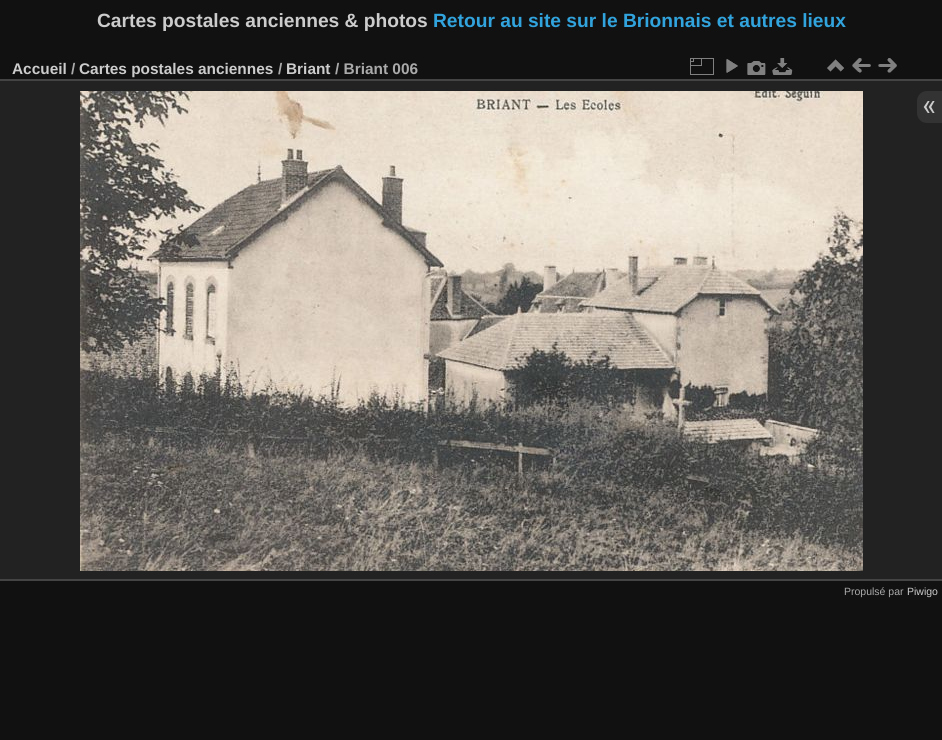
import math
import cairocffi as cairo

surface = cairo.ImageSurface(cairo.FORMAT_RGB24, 942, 740)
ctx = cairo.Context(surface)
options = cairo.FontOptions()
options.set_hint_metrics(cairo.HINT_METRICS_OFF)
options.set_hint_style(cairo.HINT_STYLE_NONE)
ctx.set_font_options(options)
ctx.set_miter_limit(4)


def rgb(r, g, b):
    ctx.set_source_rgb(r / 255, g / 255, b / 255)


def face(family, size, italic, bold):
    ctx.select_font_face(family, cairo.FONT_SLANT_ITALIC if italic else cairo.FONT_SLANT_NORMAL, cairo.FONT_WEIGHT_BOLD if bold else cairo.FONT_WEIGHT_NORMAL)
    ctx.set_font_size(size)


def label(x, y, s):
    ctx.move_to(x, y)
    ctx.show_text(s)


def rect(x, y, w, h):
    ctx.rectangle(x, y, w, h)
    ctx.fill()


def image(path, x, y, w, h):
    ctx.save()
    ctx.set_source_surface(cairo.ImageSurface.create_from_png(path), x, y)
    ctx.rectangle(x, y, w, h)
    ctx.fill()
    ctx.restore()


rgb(17, 17, 17)
ctx.paint()
face('Liberation Sans', 19.2, 0, 1)
rgb(204, 204, 204)
label(97, 27, 'Cartes postales anciennes & photos')
rgb(49, 163, 221)
label(433, 27, 'Retour au site sur le Brionnais et autres lieux')
rgb(34, 34, 34)
rect(0, 81, 942, 498)
rgb(68, 68, 68)
rect(0, 579, 942, 2)
rect(0, 79, 942, 2)
face('Liberation Sans', 15.4, 0, 1)
rgb(204, 204, 204)
label(12, 74, 'Accueil')
rgb(170, 170, 170)
label(71, 74, '/')
rgb(204, 204, 204)
label(79, 74, 'Cartes postales anciennes')
rgb(170, 170, 170)
label(278, 74, '/')
rgb(204, 204, 204)
label(286, 74, 'Briant')
rgb(170, 170, 170)
label(335, 74, '/ Briant 006')
image('image0.png', 690, 58, 24, 17)
image('image1.png', 726, 59, 12, 14)
image('image2.png', 747, 61, 19, 14)
image('image3.png', 772, 58, 21, 17)
image('image4.png', 827, 59, 17, 13)
image('image5.png', 852, 58, 19, 15)
image('image6.png', 878, 58, 19, 15)
image('image7.png', 80, 91, 783, 480)
rgb(51, 51, 51)
ctx.new_path()
ctx.move_to(927, 91)
ctx.line_to(942, 91)
ctx.line_to(942, 123)
ctx.line_to(927, 123)
ctx.curve_to(921.5, 123, 917, 118.5, 917, 113)
ctx.line_to(917, 101)
ctx.curve_to(917, 95.5, 921.5, 91, 927, 91)
ctx.close_path()
ctx.fill()
image('image8.png', 923, 101, 12, 12)
face('Liberation Sans', 10.5, 0, 0)
rgb(170, 170, 170)
label(844, 595, 'Propulsé par')
rgb(204, 204, 204)
label(907, 595, 'Piwigo')
surface.write_to_png('render.png')
